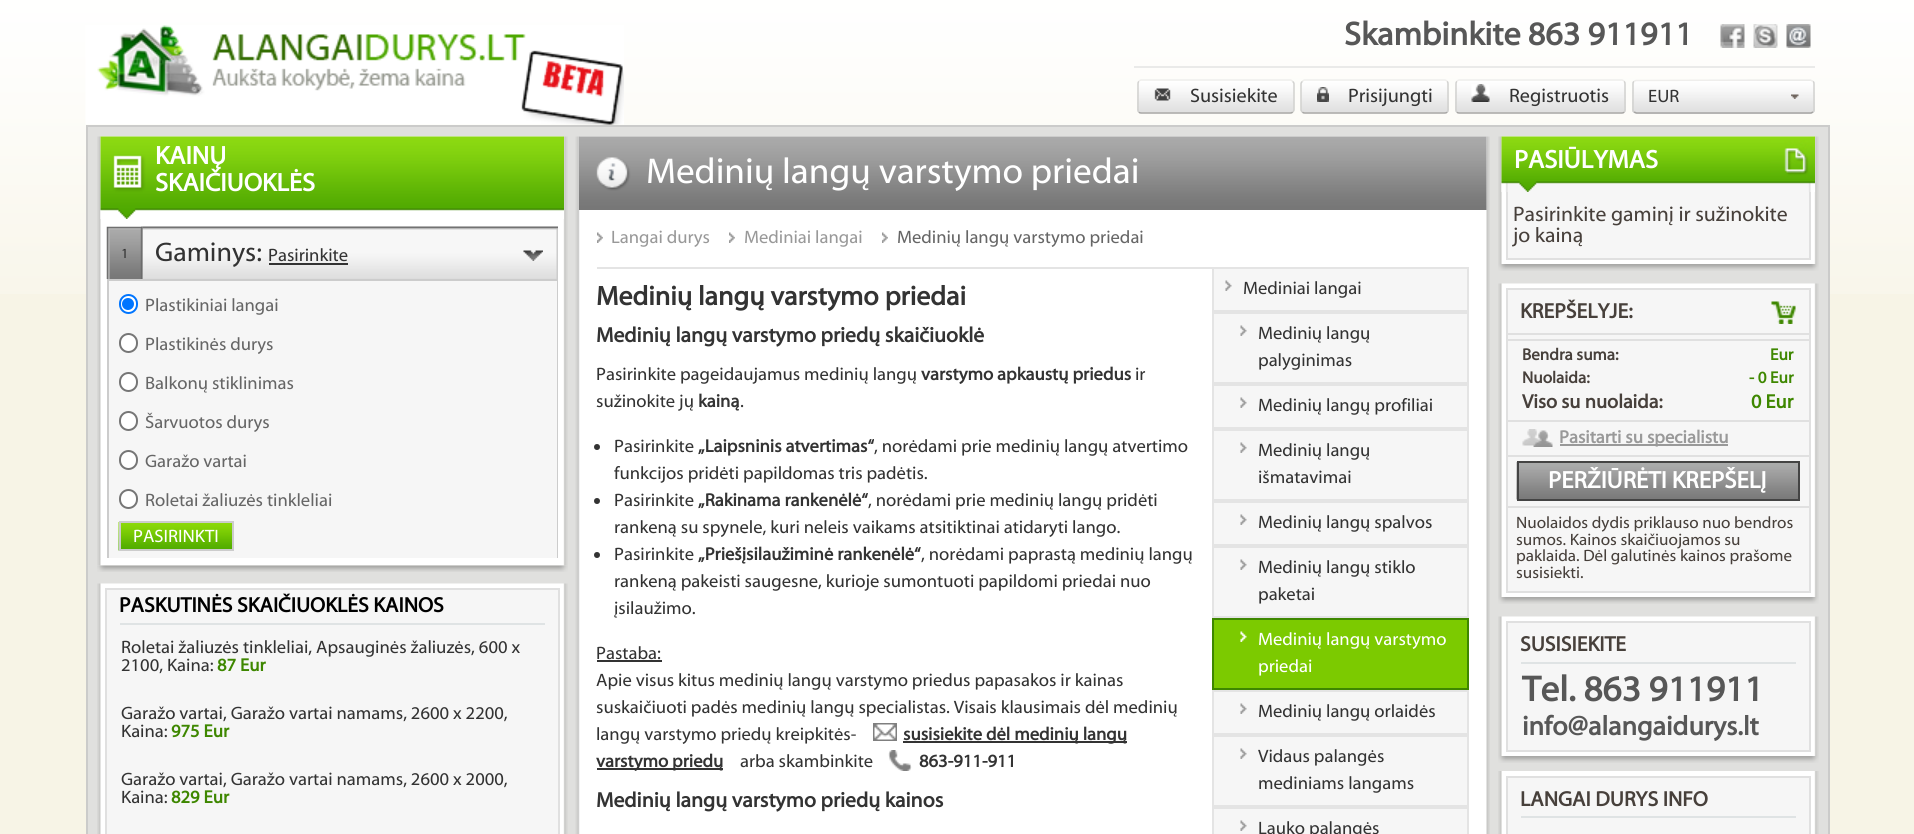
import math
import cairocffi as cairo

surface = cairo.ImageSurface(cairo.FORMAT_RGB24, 1914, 834)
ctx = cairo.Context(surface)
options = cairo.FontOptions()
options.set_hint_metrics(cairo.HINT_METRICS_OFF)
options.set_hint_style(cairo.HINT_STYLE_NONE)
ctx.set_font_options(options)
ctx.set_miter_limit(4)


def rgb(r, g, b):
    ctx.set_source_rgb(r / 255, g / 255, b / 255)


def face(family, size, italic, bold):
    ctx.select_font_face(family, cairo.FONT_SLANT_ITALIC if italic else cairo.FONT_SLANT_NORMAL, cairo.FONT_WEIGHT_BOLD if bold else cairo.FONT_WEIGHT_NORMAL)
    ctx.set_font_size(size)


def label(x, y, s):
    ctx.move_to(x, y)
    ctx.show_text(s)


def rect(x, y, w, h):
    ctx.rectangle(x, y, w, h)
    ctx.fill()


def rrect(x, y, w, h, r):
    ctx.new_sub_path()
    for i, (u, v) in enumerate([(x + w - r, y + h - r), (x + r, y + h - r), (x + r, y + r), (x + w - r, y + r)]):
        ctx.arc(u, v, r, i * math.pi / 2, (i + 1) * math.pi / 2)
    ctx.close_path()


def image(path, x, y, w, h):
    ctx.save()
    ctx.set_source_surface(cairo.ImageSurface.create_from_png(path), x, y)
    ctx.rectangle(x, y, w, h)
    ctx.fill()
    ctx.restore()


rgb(247, 244, 230)
ctx.paint()
image('image0.png', 0, 0, 1914, 294)
image('image1.png', 85, 25, 539, 100)
face('Myriad', 33, 0, 1)
rgb(87, 87, 87)
label(1344, 45, 'Skambinkite 863 911911')
image('image2.png', 1720, 24, 25, 24)
image('image3.png', 1753, 24, 25, 24)
image('image4.png', 1786, 24, 25, 24)
rgb(234, 234, 233)
rect(1134, 66, 681, 2)
image('image5.png', 1137, 81, 158, 32)
ctx.new_path()
ctx.move_to(1139, 81.5)
ctx.curve_to(1139.5, 80.5, 1140.5, 80, 1141.5, 80)
ctx.line_to(1290, 80)
ctx.curve_to(1291, 80, 1292, 80.5, 1292.5, 81.5)
rgb(239, 238, 236)
ctx.set_line_width(1.5)
ctx.stroke()
ctx.new_path()
ctx.move_to(1292.5, 81.5)
ctx.curve_to(1293.5, 82, 1294, 83, 1294, 84)
ctx.line_to(1294, 109.5)
ctx.curve_to(1294, 110.5, 1293.5, 111.5, 1292.5, 112)
rgb(209, 209, 207)
ctx.stroke()
ctx.new_path()
ctx.move_to(1292.5, 112)
ctx.curve_to(1292, 113, 1291, 113, 1290, 113)
ctx.line_to(1141.5, 113)
ctx.curve_to(1140.5, 113, 1139.5, 113, 1139, 112)
rgb(165, 164, 162)
ctx.stroke()
ctx.new_path()
ctx.move_to(1139, 112)
ctx.curve_to(1138, 111.5, 1138, 110.5, 1138, 109.5)
ctx.line_to(1138, 84)
ctx.curve_to(1138, 83, 1138, 82, 1139, 81.5)
rgb(209, 209, 207)
ctx.stroke()
image('image6.png', 1154, 88, 17, 13)
face('Myriad', 19.5, 0, 0)
rgb(51, 51, 51)
label(1190, 102, 'Susisiekite')
image('image7.png', 1300, 81, 149, 32)
ctx.new_path()
ctx.move_to(1302.5, 81.5)
ctx.curve_to(1303, 80.5, 1304, 80, 1305, 80)
ctx.line_to(1444.5, 80)
ctx.curve_to(1445.5, 80, 1446.5, 80.5, 1447, 81.5)
rgb(239, 238, 236)
ctx.stroke()
ctx.new_path()
ctx.move_to(1447, 81.5)
ctx.curve_to(1448, 82, 1448, 83, 1448, 84)
ctx.line_to(1448, 109.5)
ctx.curve_to(1448, 110.5, 1448, 111.5, 1447, 112)
rgb(209, 209, 207)
ctx.stroke()
ctx.new_path()
ctx.move_to(1447, 112)
ctx.curve_to(1446.5, 113, 1445.5, 113, 1444.5, 113)
ctx.line_to(1305, 113)
ctx.curve_to(1304, 113, 1303, 113, 1302.5, 112)
rgb(165, 164, 162)
ctx.stroke()
ctx.new_path()
ctx.move_to(1302.5, 112)
ctx.curve_to(1301.5, 111.5, 1301, 110.5, 1301, 109.5)
ctx.line_to(1301, 84)
ctx.curve_to(1301, 83, 1301.5, 82, 1302.5, 81.5)
rgb(209, 209, 207)
ctx.stroke()
image('image8.png', 1317, 87, 12, 15)
rgb(51, 51, 51)
label(1348, 102, 'Prisijungti')
image('image9.png', 1455, 81, 171, 32)
ctx.new_path()
ctx.move_to(1457, 81.5)
ctx.curve_to(1457.5, 80.5, 1458.5, 80, 1459.5, 80)
ctx.line_to(1621.5, 80)
ctx.curve_to(1622.5, 80, 1623.5, 80.5, 1624, 81.5)
rgb(239, 238, 236)
ctx.stroke()
ctx.new_path()
ctx.move_to(1624, 81.5)
ctx.curve_to(1625, 82, 1625, 83, 1625, 84)
ctx.line_to(1625, 109.5)
ctx.curve_to(1625, 110.5, 1625, 111.5, 1624, 112)
rgb(209, 209, 207)
ctx.stroke()
ctx.new_path()
ctx.move_to(1624, 112)
ctx.curve_to(1623.5, 113, 1622.5, 113, 1621.5, 113)
ctx.line_to(1459.5, 113)
ctx.curve_to(1458.5, 113, 1457.5, 113, 1457, 112)
rgb(165, 164, 162)
ctx.stroke()
ctx.new_path()
ctx.move_to(1457, 112)
ctx.curve_to(1456, 111.5, 1456, 110.5, 1456, 109.5)
ctx.line_to(1456, 84)
ctx.curve_to(1456, 83, 1456, 82, 1457, 81.5)
rgb(209, 209, 207)
ctx.stroke()
image('image10.png', 1471, 84, 19, 18)
rgb(51, 51, 51)
label(1509, 102, 'Registruotis')
rgb(225, 225, 225)
rrect(1632, 80, 183, 34, 5)
ctx.fill()
image('image11.png', 1632, 81, 183, 32)
ctx.new_path()
ctx.move_to(1634, 81.5)
ctx.line_to(1636, 80.5)
ctx.line_to(1781.5, 80)
ctx.line_to(1810.5, 80)
ctx.line_to(1813, 81.5)
rgb(239, 238, 236)
ctx.stroke()
ctx.new_path()
ctx.move_to(1813, 81.5)
ctx.curve_to(1814, 82, 1814, 83, 1814, 84)
ctx.line_to(1814, 109.5)
ctx.curve_to(1814, 110.5, 1814, 111.5, 1813, 112)
rgb(209, 209, 207)
ctx.stroke()
ctx.new_path()
ctx.move_to(1813, 112)
ctx.line_to(1811, 113)
ctx.line_to(1665.5, 113)
ctx.line_to(1636.5, 113)
ctx.line_to(1634, 112)
rgb(165, 164, 162)
ctx.stroke()
ctx.new_path()
ctx.move_to(1634, 112)
ctx.curve_to(1633, 111.5, 1633, 110.5, 1633, 109.5)
ctx.line_to(1633, 84)
ctx.curve_to(1633, 83, 1633, 82, 1634, 81.5)
rgb(209, 209, 207)
ctx.stroke()
image('image12.png', 1791, 94, 8, 5)
face('Myriad', 18, 0, 0)
rgb(51, 51, 51)
label(1648, 102, 'EUR')
rgb(224, 224, 222)
ctx.rectangle(87, 126, 1742, 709)
ctx.fill_preserve()
rgb(203, 203, 202)
ctx.set_line_width(2)
ctx.stroke()
image('image13.png', 97, 136, 471, 430)
image('image14.png', 100, 136, 464, 83)
face('Myriad', 25.5, 0, 1)
rgb(255, 255, 255)
label(155, 164, 'KAINŲ')
label(155, 191, 'SKAIČIUOKLĖS')
image('image15.png', 141, 226, 417, 53)
image('image16.png', 106, 226, 37, 53)
face('Myriad', 14, 0, 0)
rgb(51, 51, 51)
label(121, 258, '1')
face('Myriad', 27, 0, 0)
label(155, 261, 'Gaminys:')
face('Myriad', 18, 0, 0)
label(268, 261, 'Pasirinkite')
rect(269, 263, 79, 2)
image('image17.png', 523, 250, 20, 11)
rgb(204, 204, 204)
rect(557, 279, 1, 279)
rect(107, 279, 2, 279)
rect(107, 279, 451, 2)
rgb(246, 246, 246)
rect(109, 281, 448, 277)
rgb(255, 255, 255)
rrect(120, 295, 17, 18, 8.5)
ctx.fill_preserve()
rgb(0, 117, 255)
ctx.stroke()
ctx.arc(128, 304, 6, 0, 2 * math.pi)
ctx.fill()
rgb(102, 102, 102)
label(145, 311, 'Plastikiniai langai')
rgb(255, 255, 255)
rrect(120, 334, 17, 18, 8.5)
ctx.fill_preserve()
rgb(118, 118, 118)
ctx.stroke()
rgb(102, 102, 102)
label(145, 350, 'Plastikinės durys')
rgb(255, 255, 255)
rrect(120, 373, 17, 18, 8.5)
ctx.fill_preserve()
rgb(118, 118, 118)
ctx.stroke()
rgb(102, 102, 102)
label(145, 389, 'Balkonų stiklinimas')
rgb(255, 255, 255)
rrect(120, 412, 17, 18, 8.5)
ctx.fill_preserve()
rgb(118, 118, 118)
ctx.stroke()
rgb(102, 102, 102)
label(145, 428, 'Šarvuotos durys')
rgb(255, 255, 255)
rrect(120, 451, 17, 18, 8.5)
ctx.fill_preserve()
rgb(118, 118, 118)
ctx.stroke()
rgb(102, 102, 102)
label(145, 467, 'Garažo vartai')
rgb(255, 255, 255)
rrect(120, 490, 17, 18, 8.5)
ctx.fill_preserve()
rgb(118, 118, 118)
ctx.stroke()
rgb(102, 102, 102)
label(145, 506, 'Roletai žaliuzės tinkleliai')
image('image18.png', 118, 522, 114, 29)
ctx.rectangle(120, 522, 113, 28)
rgb(204, 204, 204)
ctx.stroke()
rgb(255, 255, 255)
label(133, 542, 'PASIRINKTI')
image('image19.png', 97, 565, 471, 7)
image('image20.png', 97, 583, 471, 251)
rgb(246, 246, 246)
ctx.rectangle(106, 589, 453, 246)
ctx.fill_preserve()
rgb(224, 224, 224)
ctx.stroke()
rgb(223, 227, 228)
rect(120, 623, 425, 2)
face('Myriad', 21, 0, 1)
rgb(0, 0, 0)
label(119, 612, 'PASKUTINĖS SKAIČIUOKLĖS KAINOS')
face('Myriad', 18, 0, 0)
rgb(51, 51, 51)
label(121, 653, 'Roletai žaliuzės tinkleliai, Apsauginės žaliuzės, 600 x')
label(121, 671, '2100, Kaina:')
face('Myriad', 18, 0, 1)
rgb(62, 135, 0)
label(217, 671, '87 Eur')
face('Myriad', 18, 0, 0)
rgb(51, 51, 51)
label(121, 719, 'Garažo vartai, Garažo vartai namams, 2600 x 2200,')
label(121, 737, 'Kaina:')
face('Myriad', 18, 0, 1)
rgb(62, 135, 0)
label(171, 737, '975 Eur')
face('Myriad', 18, 0, 0)
rgb(51, 51, 51)
label(121, 785, 'Garažo vartai, Garažo vartai namams, 2600 x 2000,')
label(121, 803, 'Kaina:')
face('Myriad', 18, 0, 1)
rgb(62, 135, 0)
label(171, 803, '829 Eur')
image('image21.png', 575, 136, 915, 698)
image('image22.png', 579, 136, 908, 74)
face('Myriad', 36, 0, 0)
rgb(255, 255, 255)
label(646, 183, 'Medinių langų varstymo priedai')
rgb(228, 228, 228)
rect(597, 267, 615, 2)
image('image23.png', 597, 232, 6, 11)
face('Myriad', 18, 0, 0)
rgb(153, 153, 153)
label(611, 243, 'Langai durys')
image('image23.png', 729, 232, 6, 11)
label(744, 243, 'Mediniai langai')
image('image24.png', 882, 232, 6, 11)
rgb(102, 102, 102)
label(897, 243, 'Medinių langų varstymo priedai')
face('Myriad', 27, 0, 1)
rgb(51, 51, 51)
label(596, 305, 'Medinių langų varstymo priedai')
rgb(246, 246, 246)
rect(1214, 269, 253, 565)
image('image25.png', 1225, 280, 7, 11)
ctx.rectangle(1213, 268, 255, 43)
rgb(228, 228, 228)
ctx.stroke()
face('Myriad', 18, 0, 0)
rgb(51, 51, 51)
label(1243, 294, 'Mediniai langai')
image('image25.png', 1240, 325, 7, 11)
ctx.rectangle(1213, 313, 255, 70)
rgb(228, 228, 228)
ctx.stroke()
rgb(51, 51, 51)
label(1258, 339, 'Medinių langų')
label(1258, 366, 'palyginimas')
image('image25.png', 1240, 397, 7, 11)
ctx.rectangle(1213, 385, 255, 43)
rgb(228, 228, 228)
ctx.stroke()
rgb(51, 51, 51)
label(1258, 411, 'Medinių langų profiliai')
image('image25.png', 1240, 442, 7, 11)
ctx.rectangle(1213, 430, 255, 70)
rgb(228, 228, 228)
ctx.stroke()
rgb(51, 51, 51)
label(1258, 456, 'Medinių langų')
label(1258, 483, 'išmatavimai')
image('image25.png', 1240, 514, 7, 11)
ctx.rectangle(1213, 502, 255, 43)
rgb(228, 228, 228)
ctx.stroke()
rgb(51, 51, 51)
label(1258, 528, 'Medinių langų spalvos')
image('image25.png', 1240, 559, 7, 11)
ctx.rectangle(1213, 547, 255, 70)
rgb(228, 228, 228)
ctx.stroke()
rgb(51, 51, 51)
label(1258, 573, 'Medinių langų stiklo')
label(1258, 600, 'paketai')
rgb(124, 202, 0)
rect(1214, 620, 253, 68)
image('image26.png', 1240, 631, 7, 11)
ctx.rectangle(1213, 619, 255, 70)
rgb(62, 135, 0)
ctx.stroke()
rgb(255, 255, 255)
label(1258, 645, 'Medinių langų varstymo')
label(1258, 672, 'priedai')
image('image25.png', 1240, 703, 7, 11)
ctx.rectangle(1213, 691, 255, 43)
rgb(228, 228, 228)
ctx.stroke()
rgb(51, 51, 51)
label(1258, 717, 'Medinių langų orlaidės')
image('image25.png', 1240, 748, 7, 11)
ctx.rectangle(1213, 736, 255, 70)
rgb(228, 228, 228)
ctx.stroke()
rgb(51, 51, 51)
label(1258, 762, 'Vidaus palangės')
label(1258, 789, 'mediniams langams')
image('image25.png', 1240, 820, 7, 11)
ctx.rectangle(1213, 808, 255, 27)
rgb(228, 228, 228)
ctx.stroke()
rgb(51, 51, 51)
label(1258, 834, 'Lauko palangės')
face('Myriad', 21, 0, 1)
label(596, 342, 'Medinių langų varstymo priedų skaičiuoklė')
face('Myriad', 18, 0, 0)
label(596, 380, 'Pasirinkite pageidaujamus medinių langų')
face('Myriad', 18, 0, 1)
label(921, 380, 'varstymo apkaustų priedus')
face('Myriad', 18, 0, 0)
label(1135, 380, 'ir')
label(596, 407, 'sužinokite jų')
face('Myriad', 18, 0, 1)
label(698, 407, 'kainą')
face('Myriad', 18, 0, 0)
label(740, 407, '.')
ctx.new_path()
ctx.arc(597, 447, 3, 0, 2 * math.pi)
ctx.fill()
label(614, 452, 'Pasirinkite')
face('Myriad', 18, 0, 1)
label(698, 452, '„Laipsninis atvertimas“')
face('Myriad', 18, 0, 0)
label(874, 452, ', norėdami prie medinių langų atvertimo')
label(614, 479, 'funkcijos pridėti papildomas tris padėtis.')
ctx.new_path()
ctx.arc(597, 501, 3, 0, 2 * math.pi)
ctx.fill()
label(614, 506, 'Pasirinkite')
face('Myriad', 18, 0, 1)
label(698, 506, '„Rakinama rankenėlė“')
face('Myriad', 18, 0, 0)
label(868, 506, ', norėdami prie medinių langų pridėti')
label(614, 533, 'rankeną su spynele, kuri neleis vaikams atsitiktinai atidaryti lango.')
ctx.new_path()
ctx.arc(597, 555, 3, 0, 2 * math.pi)
ctx.fill()
label(614, 560, 'Pasirinkite')
face('Myriad', 18, 0, 1)
label(698, 560, '„Priešįsilaužiminė rankenėlė“')
face('Myriad', 18, 0, 0)
label(921, 560, ', norėdami paprastą medinių langų')
label(614, 587, 'rankeną pakeisti saugesne, kurioje sumontuoti papildomi priedai nuo')
label(614, 614, 'įsilaužimo.')
label(596, 659, 'Pastaba:')
rect(597, 660, 65, 2)
label(596, 686, 'Apie visus kitus medinių langų varstymo priedus papasakos ir kainas')
label(596, 713, 'suskaičiuoti padės medinių langų specialistas. Visais klausimais dėl medinių')
label(596, 740, 'langų varstymo priedų kreipkitės-')
image('image27.png', 873, 723, 24, 18)
rect(903, 741, 224, 2)
face('Myriad', 18, 0, 1)
label(903, 740, 'susisiekite dėl medinių langų')
rect(597, 768, 126, 2)
label(596, 767, 'varstymo priedų')
face('Myriad', 18, 0, 0)
label(740, 767, 'arba skambinkite')
image('image28.png', 888, 750, 24, 21)
face('Myriad', 18, 0, 1)
label(919, 767, '863-911-911')
face('Myriad', 21, 0, 1)
label(596, 807, 'Medinių langų varstymo priedų kainos')
image('image29.png', 1498, 136, 321, 128)
image('image30.png', 1501, 136, 314, 56)
face('Myriad', 25.5, 0, 1)
rgb(255, 255, 255)
label(1514, 168, 'PASIŪLYMAS')
rgb(246, 246, 246)
rect(1508, 192, 301, 66)
rgb(224, 224, 224)
rect(1809, 192, 2, 68)
rect(1506, 258, 305, 2)
rect(1506, 192, 2, 68)
face('Myriad', 21, 0, 0)
rgb(71, 64, 59)
label(1513, 221, 'Pasirinkite gaminį ir sužinokite')
label(1513, 242, 'jo kainą')
image('image31.png', 1498, 264, 321, 7)
image('image32.png', 1498, 283, 321, 314)
rgb(246, 246, 246)
ctx.rectangle(1507, 289, 303, 303)
ctx.fill_preserve()
rgb(224, 224, 224)
ctx.stroke()
image('image33.png', 1771, 301, 25, 23)
face('Myriad', 21, 0, 1)
rgb(71, 64, 59)
label(1520, 318, 'KREPŠELYJE:')
rgb(224, 224, 224)
rect(1508, 333, 301, 2)
rect(1508, 339, 301, 2)
face('Myriad', 16.5, 0, 1)
rgb(71, 64, 59)
label(1522, 360, 'Bendra suma:')
rgb(62, 135, 0)
label(1770, 360, 'Eur')
rgb(71, 64, 59)
label(1522, 383, 'Nuolaida:')
rgb(62, 135, 0)
label(1749, 383, '- 0 Eur')
face('Myriad', 19.5, 0, 1)
rgb(71, 64, 59)
label(1522, 408, 'Viso su nuolaida:')
rgb(62, 135, 0)
label(1751, 408, '0 Eur')
rgb(224, 224, 224)
rect(1508, 420, 301, 2)
image('image34.png', 1522, 429, 31, 18)
rgb(153, 153, 153)
rect(1560, 444, 168, 2)
face('Myriad', 18, 0, 1)
label(1559, 443, 'Pasitarti su specialistu')
rgb(224, 224, 224)
rect(1508, 455, 301, 2)
image('image35.png', 1516, 462, 282, 38)
ctx.rectangle(1518, 462, 281, 38)
rgb(68, 68, 68)
ctx.stroke()
face('Myriad', 24, 0, 1)
rgb(255, 255, 255)
label(1548, 488, 'PERŽIŪRĖTI KREPŠELĮ')
rgb(224, 224, 224)
rect(1508, 506, 301, 2)
face('Myriad', 16.5, 0, 0)
rgb(71, 64, 59)
label(1516, 528, 'Nuolaidos dydis priklauso nuo bendros')
label(1516, 545, 'sumos. Kainos skaičiuojamos su')
label(1516, 561, 'paklaida. Dėl galutinės kainos prašome')
label(1516, 578, 'susisiekti.')
image('image31.png', 1498, 597, 321, 7)
image('image36.png', 1498, 616, 321, 140)
rgb(246, 246, 246)
ctx.rectangle(1507, 622, 303, 129)
ctx.fill_preserve()
rgb(224, 224, 224)
ctx.stroke()
rgb(223, 227, 228)
rect(1521, 662, 275, 2)
face('Myriad', 21, 0, 1)
rgb(71, 64, 59)
label(1520, 651, 'SUSISIEKITE')
face('Myriad', 36, 0, 1)
rgb(87, 87, 87)
label(1522, 701, 'Tel. 863 911911')
face('Myriad', 27, 0, 1)
label(1522, 735, 'info@alangaidurys.lt')
image('image31.png', 1498, 756, 321, 7)
image('image37.png', 1498, 771, 321, 63)
rgb(246, 246, 246)
ctx.rectangle(1507, 777, 303, 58)
ctx.fill_preserve()
rgb(224, 224, 224)
ctx.stroke()
rgb(223, 227, 228)
rect(1521, 816, 275, 2)
face('Myriad', 21, 0, 1)
rgb(71, 64, 59)
label(1520, 806, 'LANGAI DURYS INFO')
surface.write_to_png('render.png')
